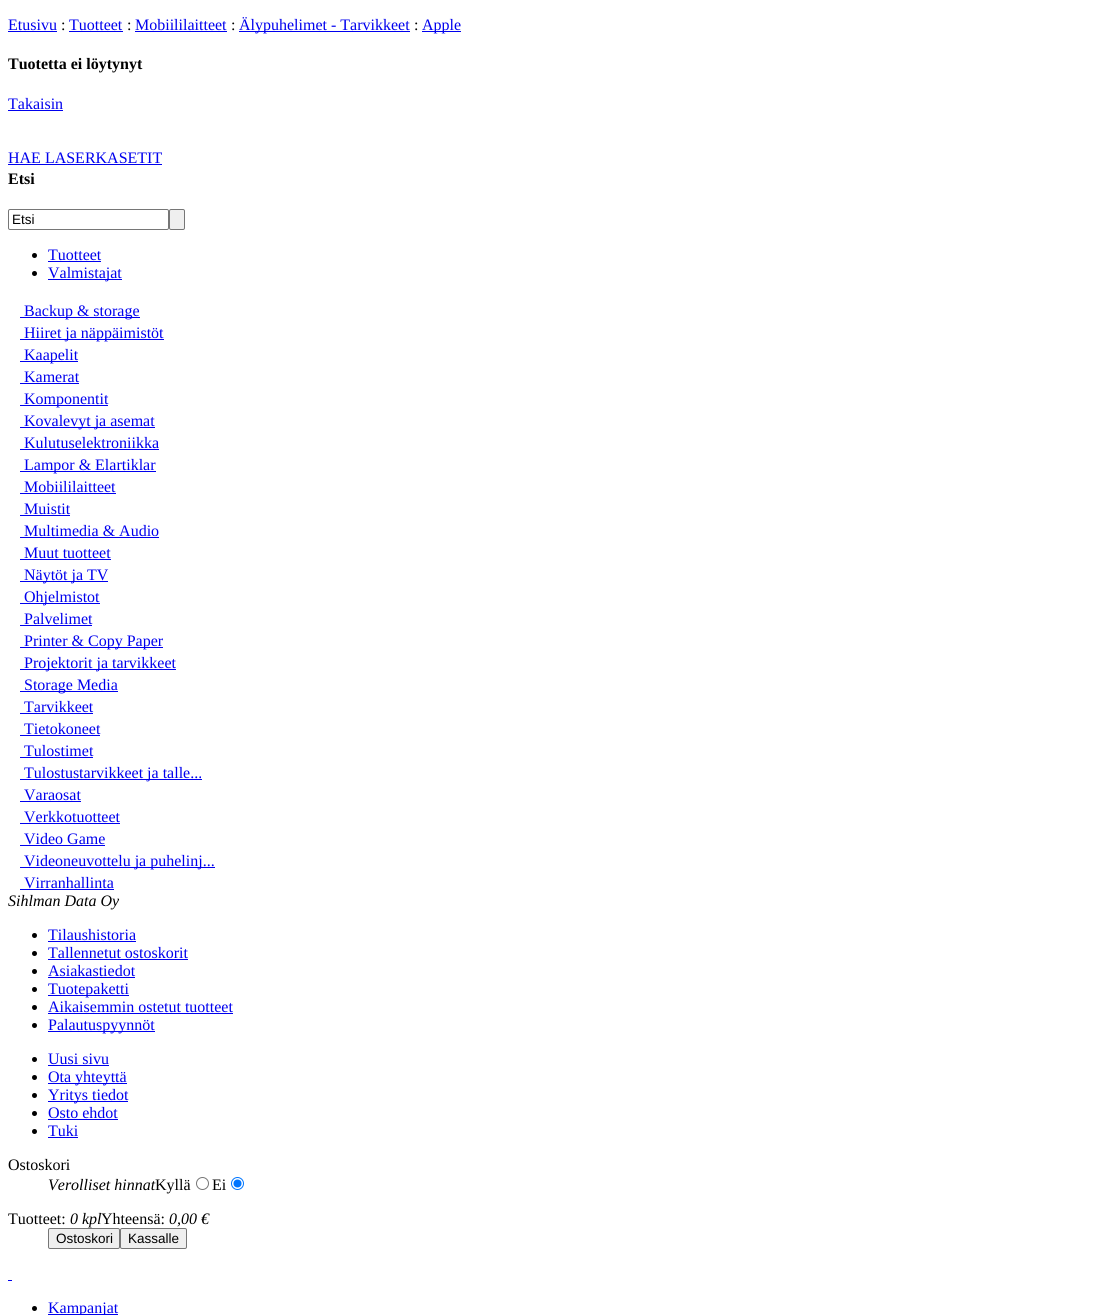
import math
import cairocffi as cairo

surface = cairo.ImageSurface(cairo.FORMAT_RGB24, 1112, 1315)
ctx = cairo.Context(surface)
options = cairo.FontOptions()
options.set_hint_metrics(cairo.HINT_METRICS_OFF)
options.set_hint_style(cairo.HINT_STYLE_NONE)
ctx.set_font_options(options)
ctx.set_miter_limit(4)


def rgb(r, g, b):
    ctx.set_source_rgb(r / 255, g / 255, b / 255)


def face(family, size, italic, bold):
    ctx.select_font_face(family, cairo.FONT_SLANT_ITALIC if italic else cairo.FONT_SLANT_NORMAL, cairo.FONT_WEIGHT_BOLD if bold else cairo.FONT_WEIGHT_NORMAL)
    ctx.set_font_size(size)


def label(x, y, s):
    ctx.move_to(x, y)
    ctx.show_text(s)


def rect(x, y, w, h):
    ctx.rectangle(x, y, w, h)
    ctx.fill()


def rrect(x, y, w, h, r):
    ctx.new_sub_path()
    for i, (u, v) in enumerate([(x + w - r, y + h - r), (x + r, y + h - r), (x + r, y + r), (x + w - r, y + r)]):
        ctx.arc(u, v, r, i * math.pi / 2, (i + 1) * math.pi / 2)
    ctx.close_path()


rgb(255, 255, 255)
ctx.paint()
face('Liberation Serif', 16, 0, 0)
rgb(0, 0, 238)
label(8, 30, 'Etusivu')
rect(8, 31, 49, 1)
rgb(0, 0, 0)
label(61, 30, ':')
rgb(0, 0, 238)
label(69, 30, 'Tuotteet')
rect(69, 31, 54, 1)
rgb(0, 0, 0)
label(127, 30, ':')
rgb(0, 0, 238)
label(135, 30, 'Mobiililaitteet')
rect(135, 31, 92, 1)
rgb(0, 0, 0)
label(231, 30, ':')
rgb(0, 0, 238)
rect(239, 31, 171, 1)
label(239, 30, 'Älypuhelimet - Tarvikkeet')
rgb(0, 0, 0)
label(414, 30, ':')
rgb(0, 0, 238)
rect(422, 31, 39, 1)
label(422, 30, 'Apple')
face('Liberation Serif', 16, 0, 1)
rgb(0, 0, 0)
label(8, 69, 'Tuotetta ei löytynyt')
face('Liberation Serif', 16, 0, 0)
rgb(0, 0, 238)
label(8, 109, 'Takaisin')
rect(8, 110, 55, 1)
label(8, 163, 'HAE LASERKASETIT')
rect(8, 164, 154, 1)
face('Liberation Serif', 16, 0, 1)
rgb(0, 0, 0)
label(8, 184, 'Etsi')
rrect(8.5, 209.5, 160, 20, 1.5)
rgb(118, 118, 118)
ctx.set_line_width(1)
ctx.stroke()
face('Liberation Sans', 13.5, 0, 0)
rgb(0, 0, 0)
label(12, 224, 'Etsi')
rgb(239, 239, 239)
rrect(169.5, 209.5, 15, 20, 1.5)
ctx.fill_preserve()
rgb(118, 118, 118)
ctx.stroke()
rgb(0, 0, 0)
ctx.arc(34.5, 255.5, 2.5, 0, 2 * math.pi)
ctx.fill()
face('Liberation Serif', 16, 0, 0)
rgb(0, 0, 238)
label(48, 260, 'Tuotteet')
rect(48, 261, 53, 1)
rgb(0, 0, 0)
ctx.new_path()
ctx.arc(34.5, 273.5, 2.5, 0, 2 * math.pi)
ctx.fill()
rgb(0, 0, 238)
rect(48, 279, 74, 1)
label(48, 278, 'Valmistajat')
rect(20, 317, 120, 1)
label(24, 316, 'Backup & storage')
rect(20, 339, 144, 1)
label(24, 338, 'Hiiret ja näppäimistöt')
rect(20, 361, 58, 1)
label(24, 360, 'Kaapelit')
label(24, 382, 'Kamerat')
rect(20, 383, 59, 1)
rect(20, 405, 88, 1)
label(24, 404, 'Komponentit')
rect(20, 427, 135, 1)
label(24, 426, 'Kovalevyt ja asemat')
label(24, 448, 'Kulutuselektroniikka')
rect(20, 449, 139, 1)
rect(20, 471, 136, 1)
label(24, 470, 'Lampor & Elartiklar')
label(24, 492, 'Mobiililaitteet')
rect(20, 493, 96, 1)
label(24, 514, 'Muistit')
rect(20, 515, 50, 1)
label(24, 536, 'Multimedia & Audio')
rect(20, 537, 139, 1)
label(24, 558, 'Muut tuotteet')
rect(20, 559, 91, 1)
rect(20, 581, 88, 1)
label(24, 580, 'Näytöt ja TV')
rect(20, 603, 80, 1)
label(24, 602, 'Ohjelmistot')
label(24, 624, 'Palvelimet')
rect(20, 625, 72, 1)
rect(20, 647, 143, 1)
label(24, 646, 'Printer & Copy Paper')
rect(20, 669, 156, 1)
label(24, 668, 'Projektorit ja tarvikkeet')
rect(20, 691, 98, 1)
label(24, 690, 'Storage Media')
label(24, 712, 'Tarvikkeet')
rect(20, 713, 73, 1)
label(24, 734, 'Tietokoneet')
rect(20, 735, 80, 1)
label(24, 756, 'Tulostimet')
rect(20, 757, 73, 1)
rect(20, 779, 182, 1)
label(24, 778, 'Tulostustarvikkeet ja talle...')
label(24, 800, 'Varaosat')
rect(20, 801, 61, 1)
label(24, 822, 'Verkkotuotteet')
rect(20, 823, 100, 1)
label(24, 844, 'Video Game')
rect(20, 845, 85, 1)
rect(20, 867, 195, 1)
label(24, 866, 'Videoneuvottelu ja puhelinj...')
label(24, 888, 'Virranhallinta')
rect(20, 889, 94, 1)
face('Liberation Serif', 16, 1, 0)
rgb(0, 0, 0)
label(8, 906, 'Sihlman Data Oy')
ctx.new_path()
ctx.arc(34.5, 935.5, 2.5, 0, 2 * math.pi)
ctx.fill()
face('Liberation Serif', 16, 0, 0)
rgb(0, 0, 238)
label(48, 940, 'Tilaushistoria')
rect(48, 941, 88, 1)
rgb(0, 0, 0)
ctx.new_path()
ctx.arc(34.5, 953.5, 2.5, 0, 2 * math.pi)
ctx.fill()
rgb(0, 0, 238)
label(48, 958, 'Tallennetut ostoskorit')
rect(48, 959, 140, 1)
rgb(0, 0, 0)
ctx.new_path()
ctx.arc(34.5, 971.5, 2.5, 0, 2 * math.pi)
ctx.fill()
rgb(0, 0, 238)
label(48, 976, 'Asiakastiedot')
rect(48, 977, 87, 1)
rgb(0, 0, 0)
ctx.new_path()
ctx.arc(34.5, 989.5, 2.5, 0, 2 * math.pi)
ctx.fill()
rgb(0, 0, 238)
rect(48, 995, 81, 1)
label(48, 994, 'Tuotepaketti')
rgb(0, 0, 0)
ctx.new_path()
ctx.arc(34.5, 1007.5, 2.5, 0, 2 * math.pi)
ctx.fill()
rgb(0, 0, 238)
label(48, 1012, 'Aikaisemmin ostetut tuotteet')
rect(48, 1013, 185, 1)
rgb(0, 0, 0)
ctx.new_path()
ctx.arc(34.5, 1025.5, 2.5, 0, 2 * math.pi)
ctx.fill()
rgb(0, 0, 238)
rect(48, 1031, 107, 1)
label(48, 1030, 'Palautuspyynnöt')
rgb(0, 0, 0)
ctx.new_path()
ctx.arc(34.5, 1059.5, 2.5, 0, 2 * math.pi)
ctx.fill()
rgb(0, 0, 238)
label(48, 1064, 'Uusi sivu')
rect(48, 1065, 61, 1)
rgb(0, 0, 0)
ctx.new_path()
ctx.arc(34.5, 1077.5, 2.5, 0, 2 * math.pi)
ctx.fill()
rgb(0, 0, 238)
rect(48, 1083, 79, 1)
label(48, 1082, 'Ota yhteyttä')
rgb(0, 0, 0)
ctx.new_path()
ctx.arc(34.5, 1095.5, 2.5, 0, 2 * math.pi)
ctx.fill()
rgb(0, 0, 238)
rect(48, 1101, 80, 1)
label(48, 1100, 'Yritys tiedot')
rgb(0, 0, 0)
ctx.new_path()
ctx.arc(34.5, 1113.5, 2.5, 0, 2 * math.pi)
ctx.fill()
rgb(0, 0, 238)
label(48, 1118, 'Osto ehdot')
rect(48, 1119, 70, 1)
rgb(0, 0, 0)
ctx.new_path()
ctx.arc(34.5, 1131.5, 2.5, 0, 2 * math.pi)
ctx.fill()
rgb(0, 0, 238)
label(48, 1136, 'Tuki')
rect(48, 1137, 30, 1)
rgb(0, 0, 0)
label(8, 1170, 'Ostoskori')
face('Liberation Serif', 16, 1, 0)
label(48, 1190, 'Verolliset hinnat')
face('Liberation Serif', 16, 0, 0)
label(155, 1190, 'Kyllä')
ctx.new_path()
ctx.arc(202.5, 1183.5, 6, 0, 2 * math.pi)
rgb(118, 118, 118)
ctx.stroke()
rgb(0, 0, 0)
label(212, 1190, 'Ei')
ctx.new_path()
ctx.arc(237.5, 1183.5, 6, 0, 2 * math.pi)
rgb(0, 117, 255)
ctx.stroke()
ctx.arc(237.5, 1183.5, 4, 0, 2 * math.pi)
ctx.fill()
rgb(0, 0, 0)
label(8, 1224, 'Tuotteet:')
face('Liberation Serif', 16, 1, 0)
label(70, 1224, '0 kpl')
face('Liberation Serif', 16, 0, 0)
label(101, 1224, 'Yhteensä:')
face('Liberation Serif', 16, 1, 0)
label(169, 1224, '0,00 €')
rgb(239, 239, 239)
rrect(48.5, 1228.5, 71, 20, 1.5)
ctx.fill_preserve()
rgb(118, 118, 118)
ctx.stroke()
face('Liberation Sans', 13.5, 0, 0)
rgb(0, 0, 0)
label(56, 1243, 'Ostoskori')
rgb(239, 239, 239)
rrect(120.5, 1228.5, 66, 20, 1.5)
ctx.fill_preserve()
rgb(118, 118, 118)
ctx.stroke()
rgb(0, 0, 0)
label(128, 1243, 'Kassalle')
rgb(0, 0, 238)
rect(8, 1280, 4, 1)
rgb(0, 0, 0)
ctx.new_path()
ctx.arc(34.5, 1308.5, 2.5, 0, 2 * math.pi)
ctx.fill()
rgb(0, 0, 238)
rect(48, 1314, 70, 1)
face('Liberation Serif', 16, 0, 0)
label(48, 1313, 'Kampanjat')
surface.write_to_png('render.png')
